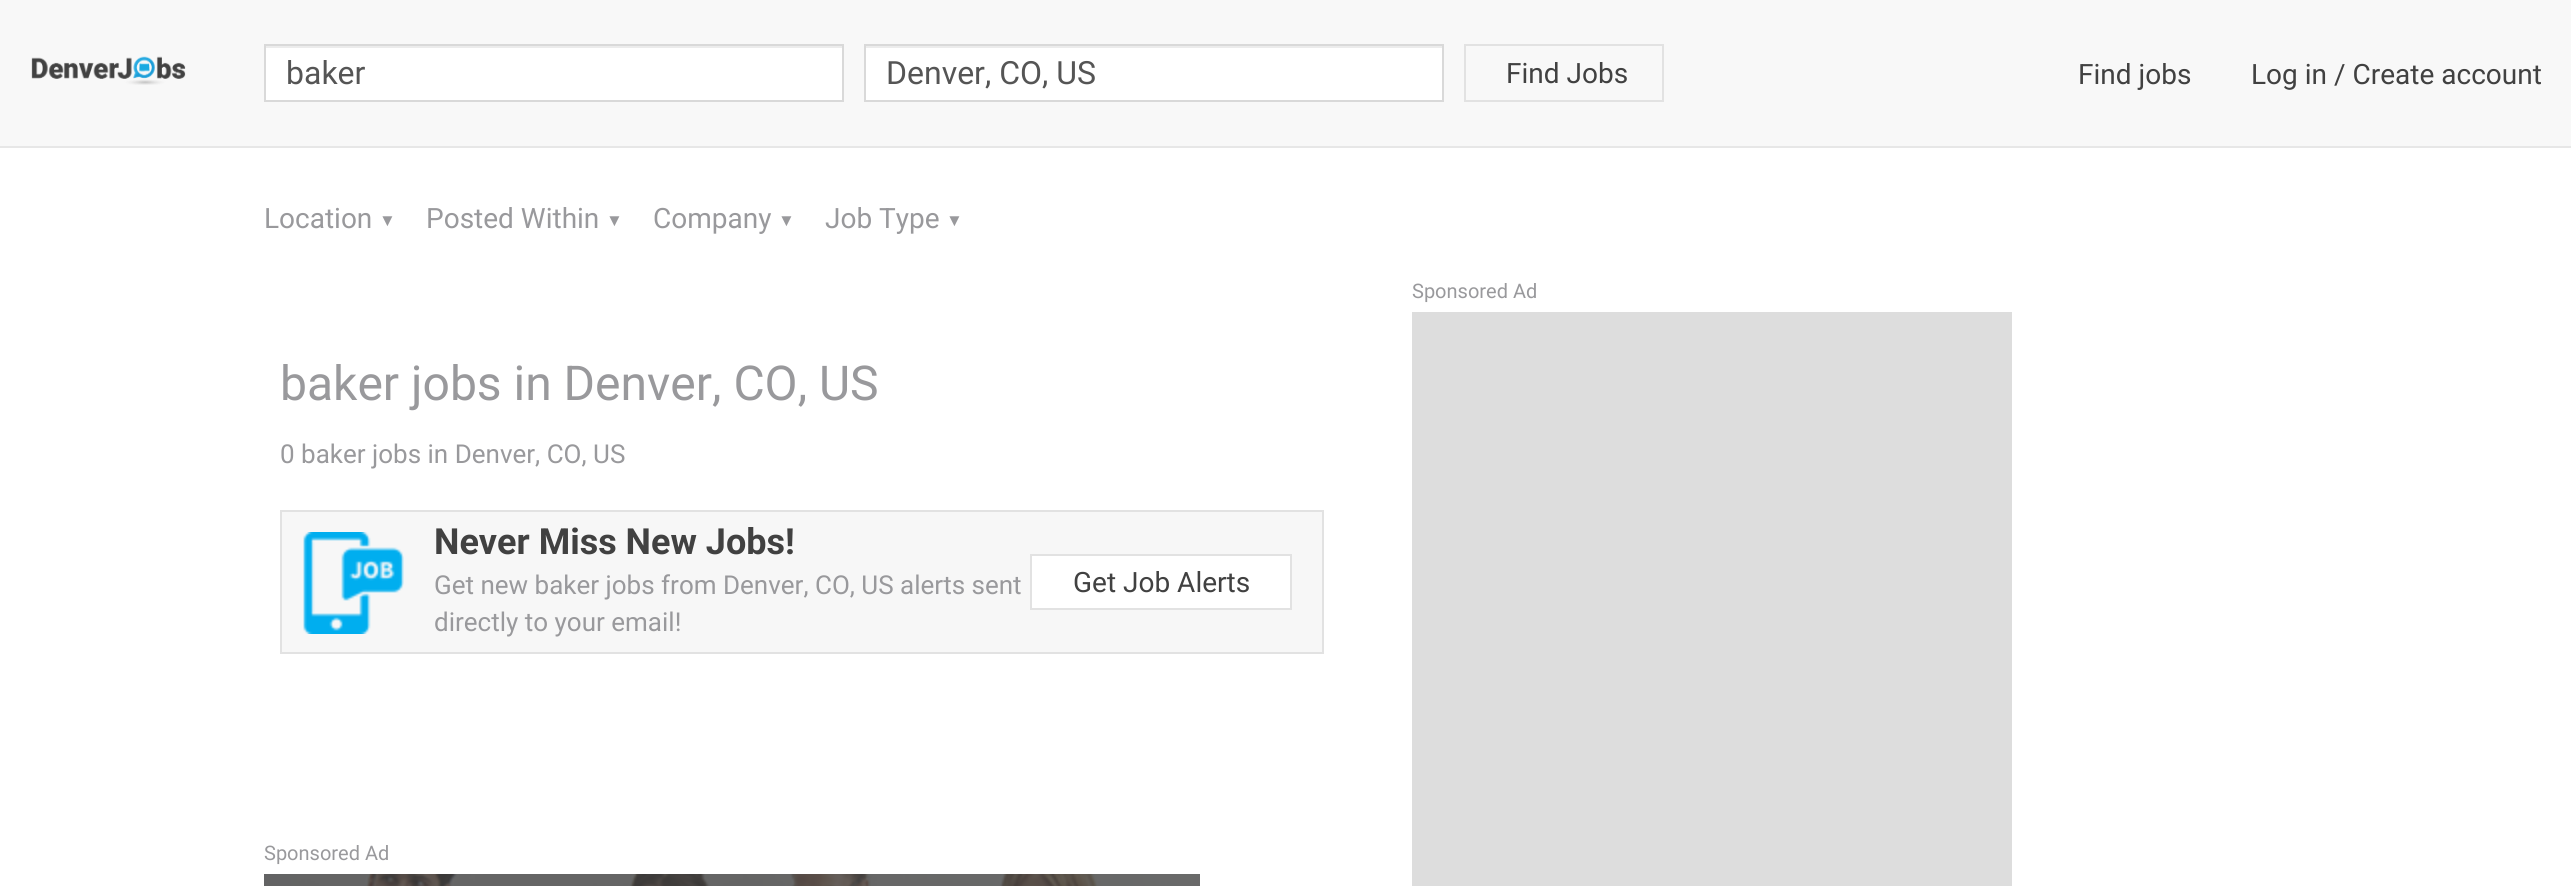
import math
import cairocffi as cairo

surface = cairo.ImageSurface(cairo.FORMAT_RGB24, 2571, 886)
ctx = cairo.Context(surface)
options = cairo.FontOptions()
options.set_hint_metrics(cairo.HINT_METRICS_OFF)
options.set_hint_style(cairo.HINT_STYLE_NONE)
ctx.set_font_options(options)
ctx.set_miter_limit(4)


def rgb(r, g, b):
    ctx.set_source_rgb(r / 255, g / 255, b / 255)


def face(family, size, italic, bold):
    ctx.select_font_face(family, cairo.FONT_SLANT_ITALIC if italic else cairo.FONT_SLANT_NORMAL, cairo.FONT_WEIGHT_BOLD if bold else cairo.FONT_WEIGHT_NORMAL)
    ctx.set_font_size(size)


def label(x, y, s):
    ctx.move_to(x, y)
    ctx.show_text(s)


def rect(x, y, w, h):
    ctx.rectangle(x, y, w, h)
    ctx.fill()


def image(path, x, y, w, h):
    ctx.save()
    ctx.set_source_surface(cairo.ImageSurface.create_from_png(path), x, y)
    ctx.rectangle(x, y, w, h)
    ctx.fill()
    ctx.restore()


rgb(255, 255, 255)
ctx.paint()
rgb(248, 248, 248)
rect(0, 0, 2571, 146)
rgb(231, 231, 231)
rect(0, 146, 2571, 2)
image('image0.png', 31, 56, 155, 29)
rgb(255, 255, 255)
rect(266, 48, 576, 52)
rgb(236, 236, 236)
rect(266, 46, 576, 2)
ctx.rectangle(265, 45, 578, 56)
rgb(217, 217, 217)
ctx.stroke()
face('Roboto', 32, 0, 0)
rgb(85, 85, 85)
label(286, 84, 'baker')
rgb(255, 255, 255)
rect(866, 48, 576, 52)
rgb(236, 236, 236)
rect(866, 46, 576, 2)
ctx.rectangle(865, 45, 578, 56)
rgb(217, 217, 217)
ctx.stroke()
rgb(85, 85, 85)
label(886, 84, 'Denver, CO, US')
ctx.rectangle(1465, 45, 198, 56)
rgb(226, 226, 226)
ctx.stroke()
face('Roboto', 28, 0, 0)
rgb(65, 65, 65)
label(1506, 83, 'Find Jobs')
label(2078, 84, 'Find jobs')
label(2251, 84, 'Log in')
label(2334, 84, '/ Create account')
rgb(153, 153, 156)
label(264, 228, 'Location')
face('Liberation Serif', 17, 0, 0)
label(379, 226, '▼')
face('Roboto', 28, 0, 0)
label(426, 228, 'Posted Within')
face('Liberation Serif', 17, 0, 0)
label(606, 226, '▼')
face('Roboto', 28, 0, 0)
label(653, 228, 'Company')
face('Liberation Serif', 17, 0, 0)
label(778, 226, '▼')
face('Roboto', 28, 0, 0)
label(825, 228, 'Job Type')
face('Liberation Serif', 17, 0, 0)
label(946, 226, '▼')
face('Roboto', 20, 0, 0)
label(1412, 298, 'Sponsored Ad')
rgb(221, 221, 221)
rect(1412, 312, 600, 574)
face('Roboto', 48, 0, 0)
rgb(153, 153, 156)
label(280, 400, 'baker jobs in Denver, CO, US')
face('Roboto', 26, 0, 0)
label(280, 463, '0 baker jobs in Denver, CO, US')
rgb(247, 247, 247)
ctx.rectangle(281, 511, 1042, 142)
ctx.fill_preserve()
rgb(226, 226, 226)
ctx.stroke()
image('image1.png', 303, 532, 101, 102)
face('Roboto', 36, 0, 1)
rgb(65, 65, 65)
label(434, 554, 'Never Miss New Jobs!')
face('Roboto', 26, 0, 0)
rgb(153, 153, 156)
label(434, 594, 'Get new baker jobs from Denver, CO, US alerts sent')
label(434, 631, 'directly to your email!')
rgb(255, 255, 255)
ctx.rectangle(1031, 555, 260, 54)
ctx.fill_preserve()
rgb(226, 226, 226)
ctx.stroke()
face('Roboto', 28, 0, 0)
rgb(65, 65, 65)
label(1073, 592, 'Get Job Alerts')
face('Roboto', 20, 0, 0)
rgb(153, 153, 156)
label(264, 860, 'Sponsored Ad')
image('image2.png', 264, 874, 936, 12)
surface.write_to_png('render.png')
